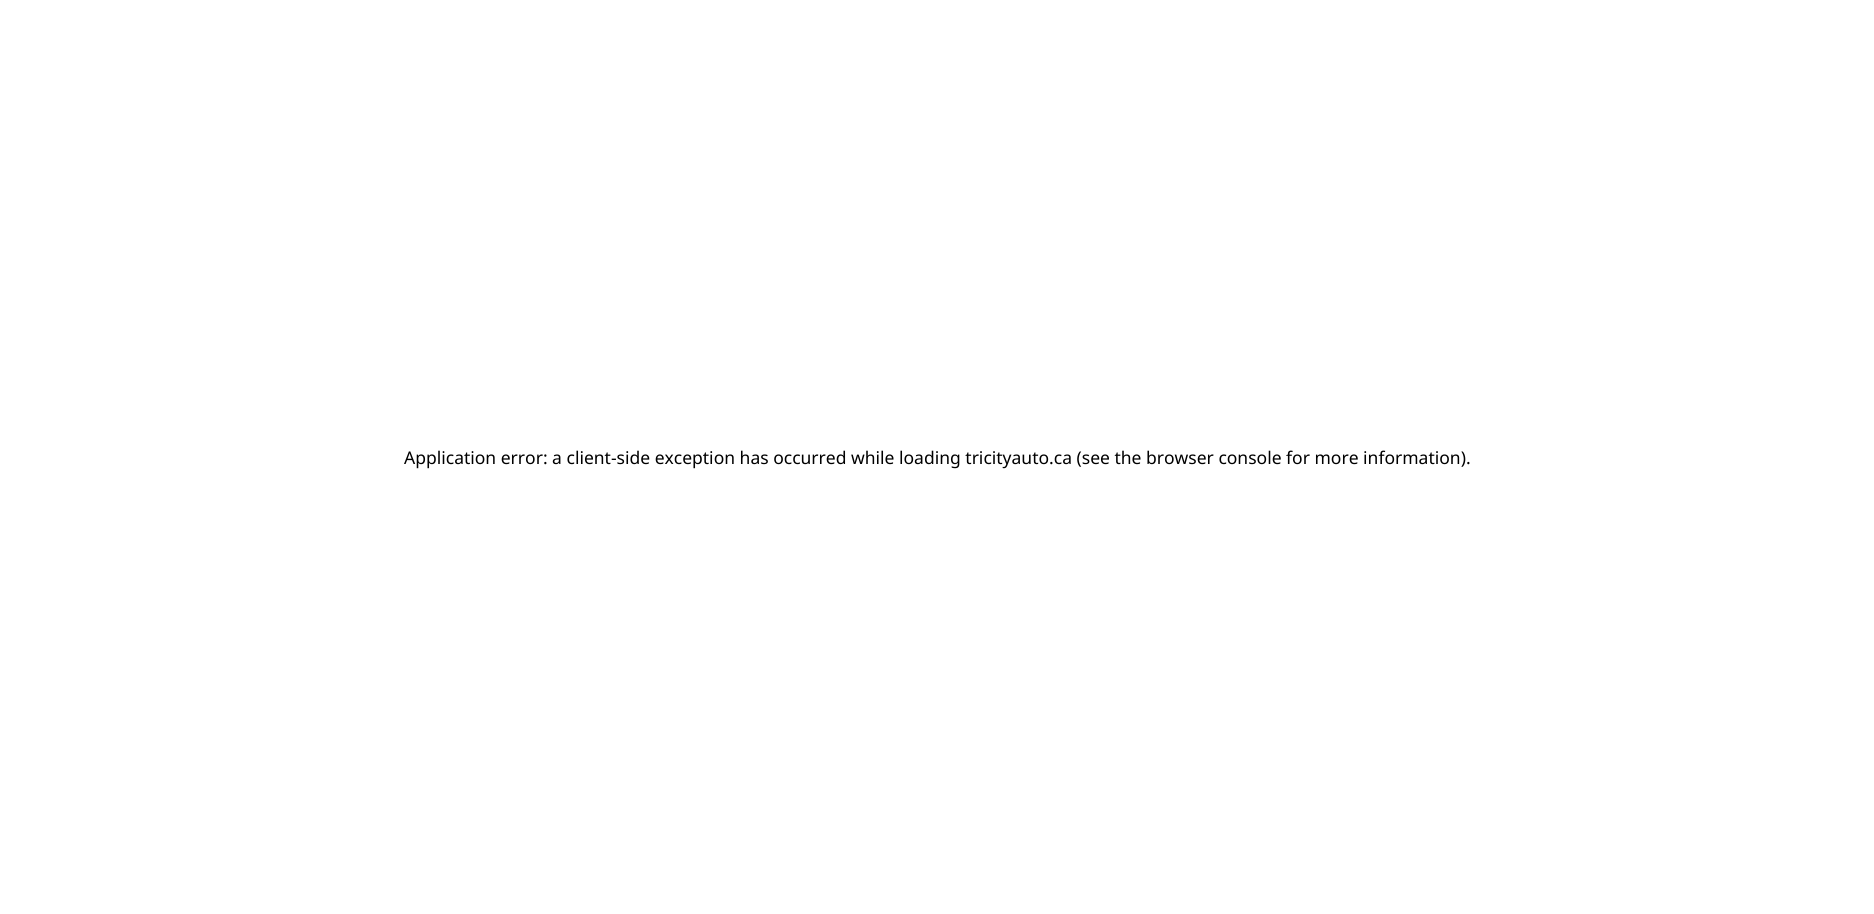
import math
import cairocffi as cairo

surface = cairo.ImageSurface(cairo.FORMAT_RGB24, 1874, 914)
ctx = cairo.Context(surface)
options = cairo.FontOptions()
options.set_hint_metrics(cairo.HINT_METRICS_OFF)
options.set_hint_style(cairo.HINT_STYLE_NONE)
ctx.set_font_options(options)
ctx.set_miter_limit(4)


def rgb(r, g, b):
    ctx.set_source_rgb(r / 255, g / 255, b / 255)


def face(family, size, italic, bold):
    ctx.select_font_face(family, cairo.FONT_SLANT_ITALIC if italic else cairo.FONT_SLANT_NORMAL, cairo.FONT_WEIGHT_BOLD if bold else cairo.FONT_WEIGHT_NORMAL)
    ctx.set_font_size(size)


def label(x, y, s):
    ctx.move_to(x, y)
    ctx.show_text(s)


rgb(255, 255, 255)
ctx.paint()
face('Noto Sans', 17.5, 0, 0)
rgb(0, 0, 0)
label(404, 464, 'Application error: a client-side exception has occurred while loading tricityauto.ca (see the browser console for more information).')
surface.write_to_png('render.png')
